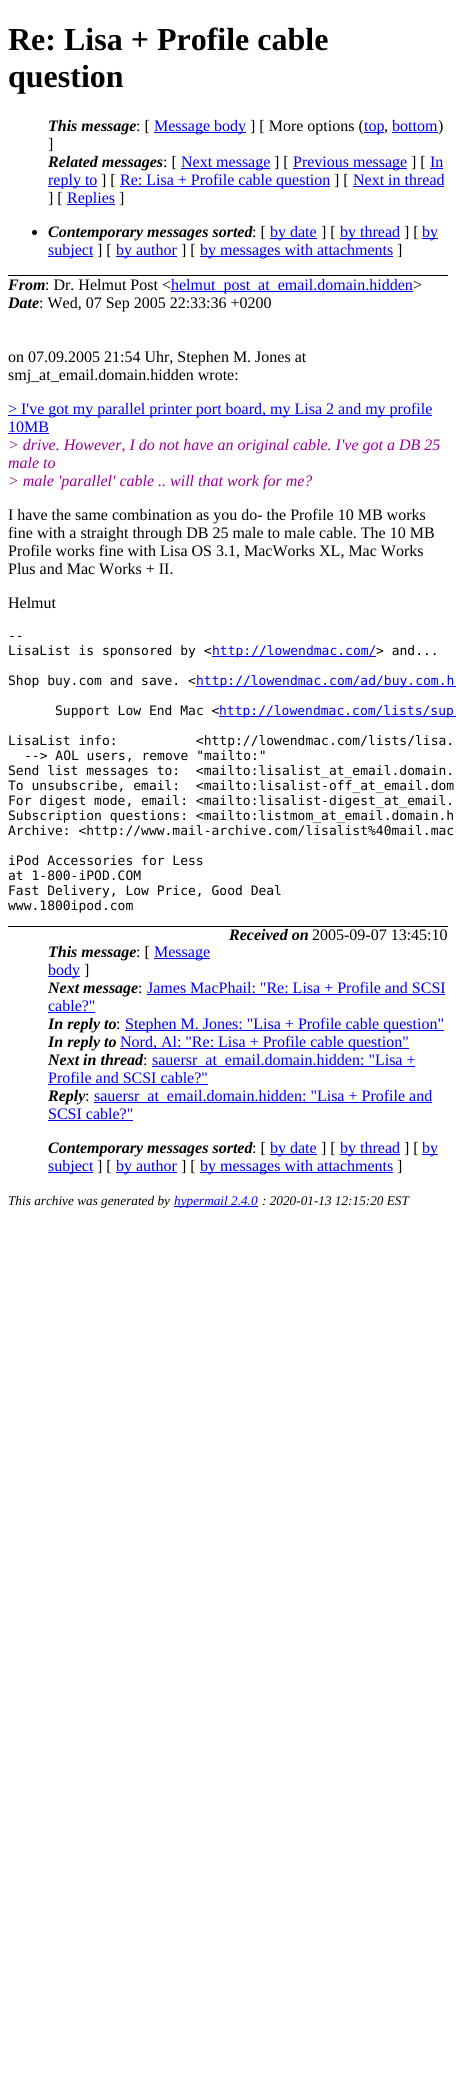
import math
import cairocffi as cairo

surface = cairo.ImageSurface(cairo.FORMAT_RGB24, 456, 2086)
ctx = cairo.Context(surface)
options = cairo.FontOptions()
options.set_hint_metrics(cairo.HINT_METRICS_OFF)
options.set_hint_style(cairo.HINT_STYLE_NONE)
ctx.set_font_options(options)
ctx.set_miter_limit(4)


def rgb(r, g, b):
    ctx.set_source_rgb(r / 255, g / 255, b / 255)


def face(family, size, italic, bold):
    ctx.select_font_face(family, cairo.FONT_SLANT_ITALIC if italic else cairo.FONT_SLANT_NORMAL, cairo.FONT_WEIGHT_BOLD if bold else cairo.FONT_WEIGHT_NORMAL)
    ctx.set_font_size(size)


def label(x, y, s):
    ctx.move_to(x, y)
    ctx.show_text(s)


def rect(x, y, w, h):
    ctx.rectangle(x, y, w, h)
    ctx.fill()


rgb(255, 255, 255)
ctx.paint()
rgb(0, 0, 0)
rect(8, 275, 440, 1)
face('Liberation Serif', 32, 0, 1)
label(8, 50, 'Re: Lisa + Profile cable')
label(8, 87, 'question')
face('Liberation Serif', 16, 1, 1)
label(48, 131, 'This message')
face('Liberation Serif', 16, 0, 0)
label(136, 131, ': [')
rgb(0, 0, 238)
rect(154, 132, 92, 1)
label(154, 131, 'Message body')
rgb(0, 0, 0)
label(250, 131, '] [ More options (')
rgb(0, 0, 238)
rect(364, 132, 20, 1)
label(364, 131, 'top')
rgb(0, 0, 0)
label(384, 131, ',')
rgb(0, 0, 238)
label(392, 131, 'bottom')
rect(392, 132, 46, 1)
rgb(0, 0, 0)
label(438, 131, ')')
label(48, 149, ']')
face('Liberation Serif', 16, 1, 1)
label(48, 167, 'Related messages')
face('Liberation Serif', 16, 0, 0)
label(163, 167, ': [')
rgb(0, 0, 238)
rect(181, 168, 89, 1)
label(181, 167, 'Next message')
rgb(0, 0, 0)
label(274, 167, '] [')
rgb(0, 0, 238)
rect(293, 168, 114, 1)
label(293, 167, 'Previous message')
rgb(0, 0, 0)
label(411, 167, '] [')
rgb(0, 0, 238)
label(430, 167, 'In')
rect(430, 168, 13, 1)
rect(48, 186, 49, 1)
label(48, 185, 'reply to')
rgb(0, 0, 0)
label(101, 185, '] [')
rgb(0, 0, 238)
rect(120, 186, 210, 1)
label(120, 185, 'Re: Lisa + Profile cable question')
rgb(0, 0, 0)
label(334, 185, '] [')
rgb(0, 0, 238)
label(353, 185, 'Next in thread')
rect(353, 186, 91, 1)
rgb(0, 0, 0)
label(48, 203, '] [')
rgb(0, 0, 238)
rect(67, 204, 48, 1)
label(67, 203, 'Replies')
rgb(0, 0, 0)
label(119, 203, ']')
ctx.new_path()
ctx.arc(34.5, 232.5, 2.5, 0, 2 * math.pi)
ctx.fill()
face('Liberation Serif', 16, 1, 1)
label(48, 237, 'Contemporary messages sorted')
face('Liberation Serif', 16, 0, 0)
label(252, 237, ': [')
rgb(0, 0, 238)
rect(270, 238, 47, 1)
label(270, 237, 'by date')
rgb(0, 0, 0)
label(321, 237, '] [')
rgb(0, 0, 238)
rect(340, 238, 60, 1)
label(340, 237, 'by thread')
rgb(0, 0, 0)
label(404, 237, '] [')
rgb(0, 0, 238)
rect(422, 238, 16, 1)
label(422, 237, 'by')
rect(48, 256, 45, 1)
label(48, 255, 'subject')
rgb(0, 0, 0)
label(97, 255, '] [')
rgb(0, 0, 238)
rect(116, 256, 61, 1)
label(116, 255, 'by author')
rgb(0, 0, 0)
label(181, 255, '] [')
rgb(0, 0, 238)
rect(200, 256, 193, 1)
label(200, 255, 'by messages with attachments')
rgb(0, 0, 0)
label(397, 255, ']')
face('Liberation Serif', 16, 1, 1)
label(8, 290, 'From')
face('Liberation Serif', 16, 0, 0)
label(45, 290, ': Dr. Helmut Post <')
rgb(0, 0, 238)
rect(171, 291, 242, 1)
label(171, 290, 'helmut_post_at_email.domain.hidden')
rgb(0, 0, 0)
label(413, 290, '>')
face('Liberation Serif', 16, 1, 1)
label(8, 308, 'Date')
face('Liberation Serif', 16, 0, 0)
label(39, 308, ': Wed, 07 Sep 2005 22:33:36 +0200')
label(8, 362, 'on 07.09.2005 21:54 Uhr, Stephen M. Jones at')
label(8, 380, 'smj_at_email.domain.hidden wrote:')
rgb(0, 0, 238)
rect(8, 415, 424, 1)
label(8, 414, '> I\'ve got my parallel printer port board, my Lisa 2 and my profile')
label(8, 432, '10MB')
rect(8, 433, 41, 1)
face('Liberation Serif', 16, 1, 0)
rgb(153, 0, 153)
label(8, 450, '> drive. However, I do not have an original cable. I\'ve got a DB 25')
label(8, 468, 'male to')
label(8, 486, '> male \'parallel\' cable .. will that work for me?')
face('Liberation Serif', 16, 0, 0)
rgb(0, 0, 0)
label(8, 520, 'I have the same combination as you do- the Profile 10 MB works')
label(8, 538, 'fine with a straight through DB 25 male to male cable. The 10 MB')
label(8, 556, 'Profile works fine with Lisa OS 3.1, MacWorks XL, Mac Works')
label(8, 574, 'Plus and Mac Works + II.')
label(8, 608, 'Helmut')
face('DejaVu Sans Mono', 13, 0, 0)
label(8, 640, '--')
label(8, 655, 'LisaList is sponsored by <')
rgb(0, 0, 238)
rect(212, 656, 164, 1)
label(212, 655, 'http://lowendmac.com/')
rgb(0, 0, 0)
label(376, 655, '> and...')
label(8, 685, 'Shop buy.com and save. <')
rgb(0, 0, 238)
rect(196, 686, 260, 1)
label(196, 685, 'http://lowendmac.com/ad/buy.com.h')
rgb(0, 0, 0)
label(55, 715, 'Support Low End Mac <')
rgb(0, 0, 238)
rect(219, 716, 237, 1)
label(219, 715, 'http://lowendmac.com/lists/sup')
rgb(0, 0, 0)
label(8, 745, 'LisaList info:          <http://lowendmac.com/lists/lisa.')
label(24, 760, '--> AOL users, remove "mailto:"')
label(8, 775, 'Send list messages to:  <mailto:lisalist_at_email.domain.')
label(8, 790, 'To unsubscribe, email:  <mailto:lisalist-off_at_email.dom')
label(8, 805, 'For digest mode, email: <mailto:lisalist-digest_at_email.')
label(8, 820, 'Subscription questions: <mailto:listmom_at_email.domain.h')
label(8, 835, 'Archive: <http://www.mail-archive.com/lisalist%40mail.mac')
label(8, 865, 'iPod Accessories for Less')
label(8, 880, 'at 1-800-iPOD.COM')
label(8, 895, 'Fast Delivery, Low Price, Good Deal')
label(8, 910, 'www.1800ipod.com')
face('Liberation Serif', 16, 1, 1)
label(229, 940, 'Received on')
face('Liberation Serif', 16, 0, 0)
label(312, 940, '2005-09-07 13:45:10')
rect(8, 926, 440, 1)
face('Liberation Serif', 16, 1, 1)
label(48, 957, 'This message')
face('Liberation Serif', 16, 0, 0)
label(136, 957, ': [')
rgb(0, 0, 238)
rect(154, 958, 56, 1)
label(154, 957, 'Message')
rect(48, 976, 32, 1)
label(48, 975, 'body')
rgb(0, 0, 0)
label(84, 975, ']')
face('Liberation Serif', 16, 1, 1)
label(48, 993, 'Next message')
face('Liberation Serif', 16, 0, 0)
label(138, 993, ':')
rgb(0, 0, 238)
label(147, 993, 'James MacPhail: "Re: Lisa + Profile and SCSI')
rect(147, 994, 298, 1)
label(48, 1011, 'cable?"')
rect(48, 1012, 47, 1)
face('Liberation Serif', 16, 1, 1)
rgb(0, 0, 0)
label(48, 1029, 'In reply to')
face('Liberation Serif', 16, 0, 0)
label(116, 1029, ':')
rgb(0, 0, 238)
rect(125, 1030, 319, 1)
label(125, 1029, 'Stephen M. Jones: "Lisa + Profile cable question"')
face('Liberation Serif', 16, 1, 1)
rgb(0, 0, 0)
label(48, 1047, 'In reply to')
rgb(0, 0, 238)
rect(120, 1048, 289, 1)
face('Liberation Serif', 16, 0, 0)
label(120, 1047, 'Nord, Al: "Re: Lisa + Profile cable question"')
face('Liberation Serif', 16, 1, 1)
rgb(0, 0, 0)
label(48, 1065, 'Next in thread')
face('Liberation Serif', 16, 0, 0)
label(143, 1065, ':')
rgb(0, 0, 238)
rect(152, 1066, 263, 1)
label(152, 1065, 'sauersr_at_email.domain.hidden: "Lisa +')
label(48, 1083, 'Profile and SCSI cable?"')
rect(48, 1084, 160, 1)
face('Liberation Serif', 16, 1, 1)
rgb(0, 0, 0)
label(48, 1101, 'Reply')
face('Liberation Serif', 16, 0, 0)
label(85, 1101, ':')
rgb(0, 0, 238)
rect(94, 1102, 338, 1)
label(94, 1101, 'sauersr_at_email.domain.hidden: "Lisa + Profile and')
label(48, 1119, 'SCSI cable?"')
rect(48, 1120, 85, 1)
face('Liberation Serif', 16, 1, 1)
rgb(0, 0, 0)
label(48, 1153, 'Contemporary messages sorted')
face('Liberation Serif', 16, 0, 0)
label(252, 1153, ': [')
rgb(0, 0, 238)
rect(270, 1154, 47, 1)
label(270, 1153, 'by date')
rgb(0, 0, 0)
label(321, 1153, '] [')
rgb(0, 0, 238)
rect(340, 1154, 60, 1)
label(340, 1153, 'by thread')
rgb(0, 0, 0)
label(404, 1153, '] [')
rgb(0, 0, 238)
rect(422, 1154, 16, 1)
label(422, 1153, 'by')
rect(48, 1172, 45, 1)
label(48, 1171, 'subject')
rgb(0, 0, 0)
label(97, 1171, '] [')
rgb(0, 0, 238)
rect(116, 1172, 61, 1)
label(116, 1171, 'by author')
rgb(0, 0, 0)
label(181, 1171, '] [')
rgb(0, 0, 238)
rect(200, 1172, 193, 1)
label(200, 1171, 'by messages with attachments')
rgb(0, 0, 0)
label(397, 1171, ']')
face('Liberation Serif', 13.25, 1, 0)
label(8, 1205, 'This archive was generated by')
rgb(0, 0, 238)
rect(174, 1206, 84, 1)
label(174, 1205, 'hypermail 2.4.0')
rgb(0, 0, 0)
label(262, 1205, ': 2020-01-13 12:15:20 EST')
surface.write_to_png('render.png')
